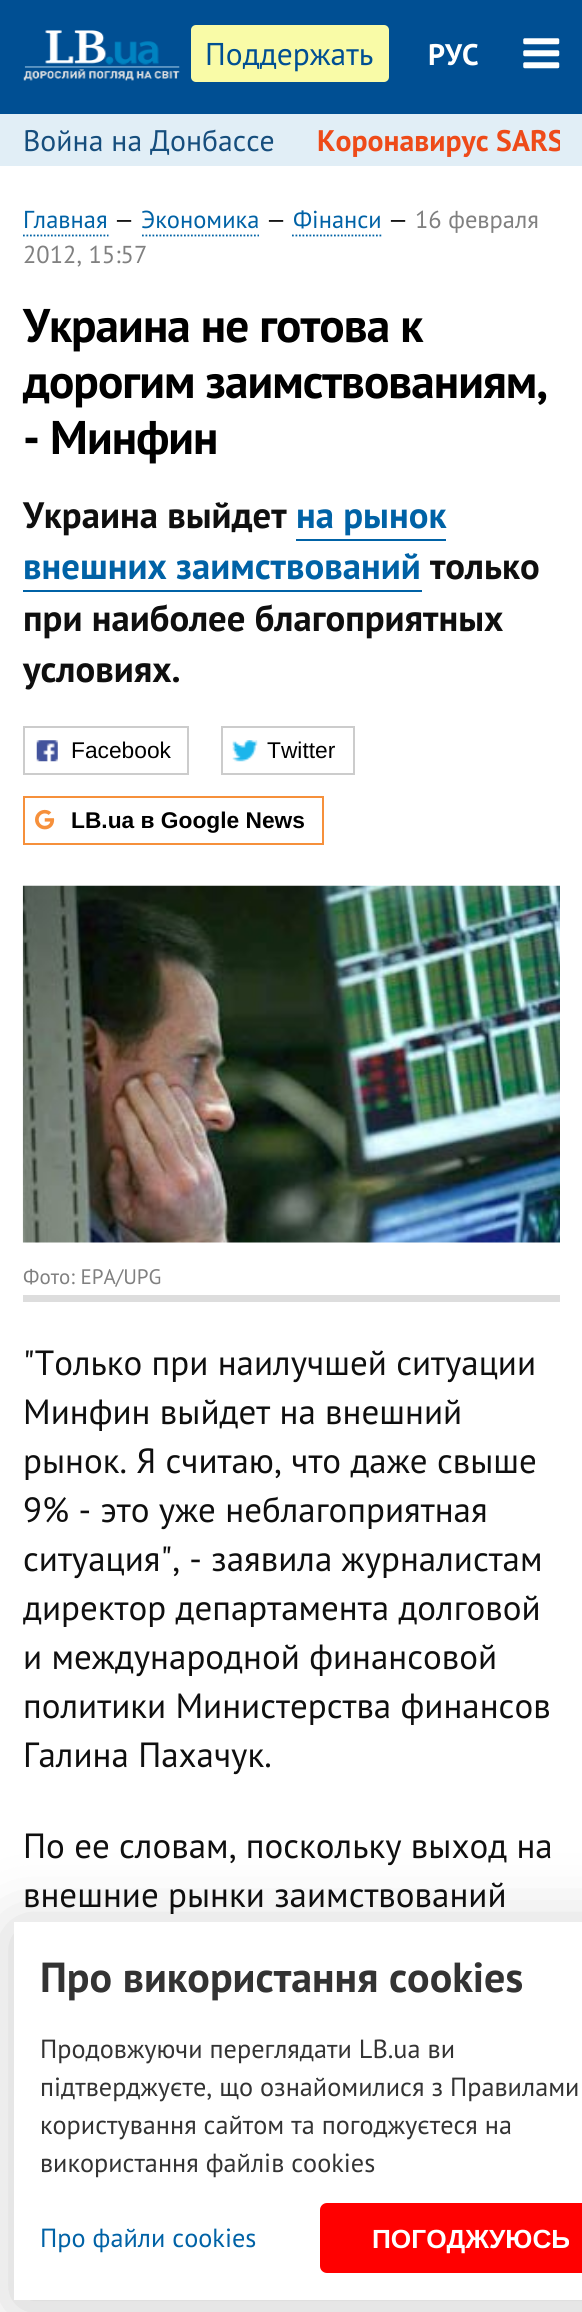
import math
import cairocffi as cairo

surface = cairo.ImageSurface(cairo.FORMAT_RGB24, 582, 2312)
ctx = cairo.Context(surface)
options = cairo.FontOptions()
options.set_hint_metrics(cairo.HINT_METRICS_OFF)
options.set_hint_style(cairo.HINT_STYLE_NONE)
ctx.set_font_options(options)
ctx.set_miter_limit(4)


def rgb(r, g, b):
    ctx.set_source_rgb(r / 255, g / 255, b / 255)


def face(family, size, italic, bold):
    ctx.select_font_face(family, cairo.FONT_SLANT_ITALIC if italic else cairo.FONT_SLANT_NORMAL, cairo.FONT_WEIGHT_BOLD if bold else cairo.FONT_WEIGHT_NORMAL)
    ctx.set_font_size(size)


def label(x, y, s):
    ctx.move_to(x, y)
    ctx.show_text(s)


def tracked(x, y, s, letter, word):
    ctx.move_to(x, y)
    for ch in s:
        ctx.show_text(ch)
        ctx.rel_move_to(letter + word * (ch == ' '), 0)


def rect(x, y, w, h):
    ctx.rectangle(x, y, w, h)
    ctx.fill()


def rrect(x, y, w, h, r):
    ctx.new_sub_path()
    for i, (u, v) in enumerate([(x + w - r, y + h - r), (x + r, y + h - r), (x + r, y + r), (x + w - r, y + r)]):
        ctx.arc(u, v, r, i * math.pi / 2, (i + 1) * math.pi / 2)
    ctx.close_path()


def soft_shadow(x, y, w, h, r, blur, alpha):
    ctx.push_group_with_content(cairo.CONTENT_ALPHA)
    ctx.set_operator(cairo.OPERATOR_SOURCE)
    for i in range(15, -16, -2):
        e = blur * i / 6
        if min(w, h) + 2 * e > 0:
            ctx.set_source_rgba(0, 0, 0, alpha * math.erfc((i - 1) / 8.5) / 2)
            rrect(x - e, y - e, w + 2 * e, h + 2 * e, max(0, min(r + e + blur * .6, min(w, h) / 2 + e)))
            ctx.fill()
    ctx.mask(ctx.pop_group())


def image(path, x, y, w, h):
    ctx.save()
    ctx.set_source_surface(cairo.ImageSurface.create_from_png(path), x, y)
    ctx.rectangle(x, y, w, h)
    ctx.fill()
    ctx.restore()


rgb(255, 255, 255)
ctx.paint()
rgb(0, 79, 147)
rect(0, 0, 582, 114)
image('image0.png', 23, 30, 157, 51)
rgb(249, 251, 167)
rrect(191, 25, 198, 57, 5)
ctx.fill()
face('PT Sans', 31.5, 0, 0)
rgb(0, 79, 147)
label(205, 65, 'Поддержать')
face('PT Sans', 29.75, 0, 1)
rgb(255, 255, 255)
label(428, 65, 'РУС')
image('image1.png', 523, 38, 37, 31)
rgb(225, 238, 246)
rect(0, 114, 582, 52)
face('PT Sans', 29.75, 0, 0)
rgb(22, 78, 125)
label(23, 151, 'Война на Донбассе')
ctx.save()
ctx.rectangle(23, 114, 537, 52)
ctx.clip()
face('PT Sans', 29.75, 0, 1)
rgb(238, 75, 25)
label(317, 151, 'Коронавирус SARS')
ctx.restore()
face('PT Sans', 24.5, 0, 0)
rgb(0, 98, 166)
label(23, 228, 'Главная')
ctx.new_path()
ctx.move_to(23, 235.5)
ctx.line_to(108.5, 235.5)
ctx.set_line_width(1.8)
ctx.set_dash([1.75, 1.75])
ctx.stroke()
rgb(15, 15, 15)
label(114, 228, '—')
rgb(0, 98, 166)
label(141, 228, 'Экономика')
ctx.new_path()
ctx.move_to(142, 235.5)
ctx.line_to(259, 235.5)
ctx.stroke()
rgb(15, 15, 15)
label(266, 228, '—')
rgb(0, 98, 166)
label(293, 228, 'Фінанси')
ctx.new_path()
ctx.move_to(292, 235.5)
ctx.line_to(381.5, 235.5)
ctx.stroke()
rgb(15, 15, 15)
label(388, 228, '—')
rgb(128, 128, 128)
label(415, 228, '16 февраля')
label(23, 263, '2012, 15:57')
face('PT Sans', 47.25, 0, 1)
rgb(0, 0, 0)
tracked(23, 342, 'Украина не готова к', -0.95, 0)
tracked(23, 398, 'дорогим заимствованиям,', -0.95, 0)
tracked(23, 454, '- Минфин', -0.95, 0)
face('PT Sans', 36.75, 0, 1)
rgb(15, 15, 15)
label(23, 528, 'Украина выйдет')
rgb(0, 98, 166)
label(296, 528, 'на рынок')
rect(296, 539, 150, 2)
label(23, 579, 'внешних заимствований')
rect(23, 590, 399, 2)
rgb(15, 15, 15)
label(430, 579, 'только')
label(23, 631, 'при наиболее благоприятных')
label(23, 682, 'условиях.')
ctx.rectangle(24, 727, 164, 47)
rgb(204, 204, 204)
ctx.set_line_width(2)
ctx.set_dash([])
ctx.stroke()
image('image2.png', 36, 740, 22, 22)
face('Liberation Sans', 22.75, 0, 0)
rgb(0, 0, 0)
label(71, 758, 'Facebook')
ctx.rectangle(222, 727, 132, 47)
rgb(204, 204, 204)
ctx.stroke()
image('image3.png', 232, 740, 26, 22)
rgb(0, 0, 0)
label(267, 758, 'Twitter')
ctx.rectangle(24, 797, 299, 47)
rgb(246, 144, 59)
ctx.stroke()
image('image4.png', 35, 809, 20, 21)
face('Liberation Sans', 22.75, 0, 1)
rgb(0, 0, 0)
label(71, 828, 'LB.ua в Google News')
rgb(221, 221, 221)
rect(23, 1295, 537, 7)
image('image5.png', 22, 885, 538, 358)
face('PT Sans', 21, 0, 0)
rgb(128, 128, 128)
label(23, 1284, 'Фото: EPA/UPG')
face('PT Sans', 35, 0, 0)
rgb(15, 15, 15)
label(23, 1375, '"Только при наилучшей ситуации')
label(23, 1424, 'Минфин выйдет на внешний')
label(23, 1473, 'рынок. Я считаю, что даже свыше')
label(23, 1522, '9% - это уже неблагоприятная')
label(23, 1571, 'ситуация", - заявила журналистам')
label(23, 1620, 'директор департамента долговой')
label(23, 1669, 'и международной финансовой')
label(23, 1718, 'политики Министерства финансов')
label(23, 1767, 'Галина Пахачук.')
label(23, 1858, 'По ее словам, поскольку выход на')
label(23, 1907, 'внешние рынки заимствований')
rgb(0, 0, 0)
soft_shadow(14, 1929, 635, 378, 0, 35, 0.2)
rgb(255, 255, 255)
rect(14, 1922, 568, 378)
face('PT Sans', 42, 0, 1)
rgb(51, 51, 51)
label(40, 1992, 'Про використання cookies')
face('PT Sans', 26.25, 0, 0)
label(40, 2058, 'Продовжуючи переглядати LB.ua ви')
label(40, 2096, 'підтверджуєте, що ознайомилися з Правилами')
label(40, 2134, 'користування сайтом та погоджуєтеся на')
label(40, 2172, 'використання файлів cookies')
rgb(0, 98, 166)
label(40, 2247, 'Про файли cookies')
rgb(255, 0, 0)
rrect(320, 2203, 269, 70, 7)
ctx.fill()
face('Liberation Sans', 26.25, 0, 1)
rgb(255, 255, 255)
label(372, 2248, 'ПОГОДЖУЮСЬ')
surface.write_to_png('render.png')
